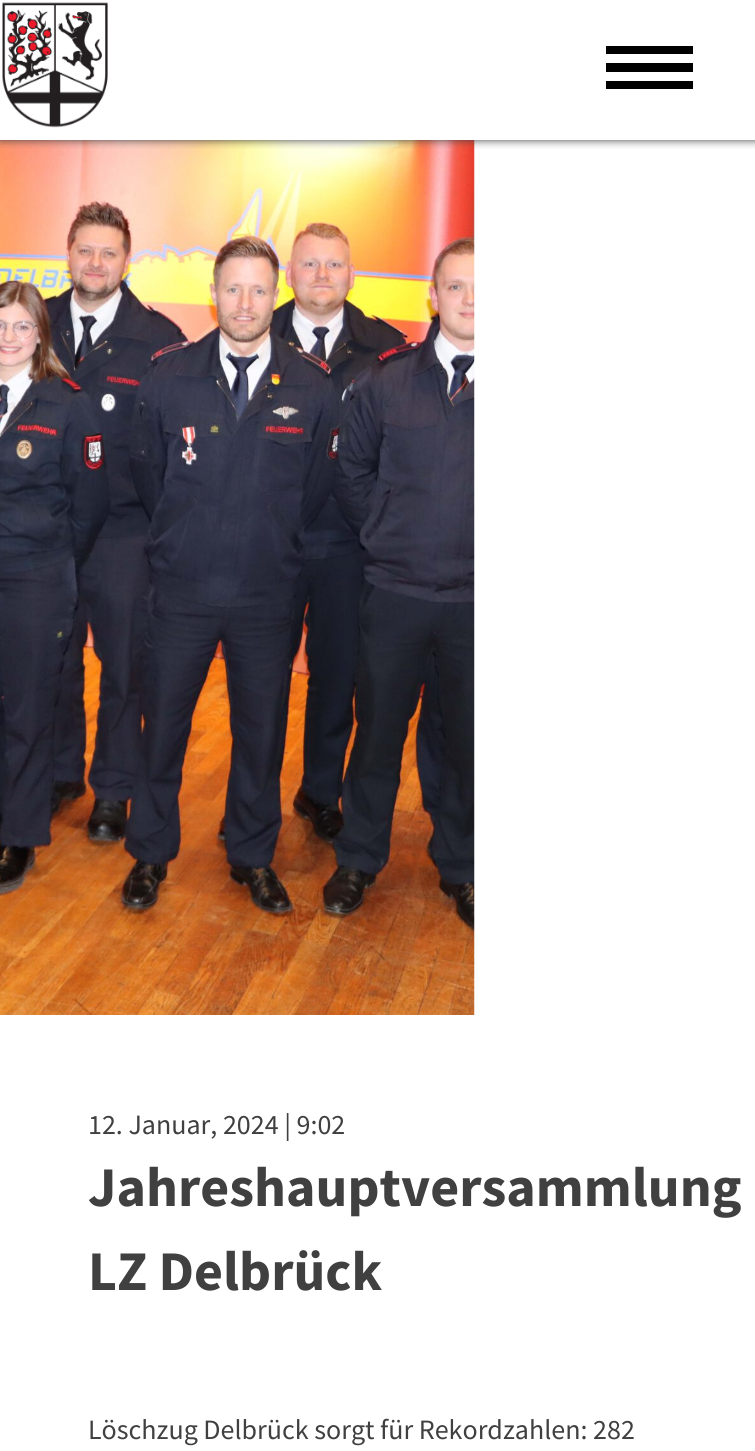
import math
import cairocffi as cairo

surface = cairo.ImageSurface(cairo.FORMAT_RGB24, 755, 1451)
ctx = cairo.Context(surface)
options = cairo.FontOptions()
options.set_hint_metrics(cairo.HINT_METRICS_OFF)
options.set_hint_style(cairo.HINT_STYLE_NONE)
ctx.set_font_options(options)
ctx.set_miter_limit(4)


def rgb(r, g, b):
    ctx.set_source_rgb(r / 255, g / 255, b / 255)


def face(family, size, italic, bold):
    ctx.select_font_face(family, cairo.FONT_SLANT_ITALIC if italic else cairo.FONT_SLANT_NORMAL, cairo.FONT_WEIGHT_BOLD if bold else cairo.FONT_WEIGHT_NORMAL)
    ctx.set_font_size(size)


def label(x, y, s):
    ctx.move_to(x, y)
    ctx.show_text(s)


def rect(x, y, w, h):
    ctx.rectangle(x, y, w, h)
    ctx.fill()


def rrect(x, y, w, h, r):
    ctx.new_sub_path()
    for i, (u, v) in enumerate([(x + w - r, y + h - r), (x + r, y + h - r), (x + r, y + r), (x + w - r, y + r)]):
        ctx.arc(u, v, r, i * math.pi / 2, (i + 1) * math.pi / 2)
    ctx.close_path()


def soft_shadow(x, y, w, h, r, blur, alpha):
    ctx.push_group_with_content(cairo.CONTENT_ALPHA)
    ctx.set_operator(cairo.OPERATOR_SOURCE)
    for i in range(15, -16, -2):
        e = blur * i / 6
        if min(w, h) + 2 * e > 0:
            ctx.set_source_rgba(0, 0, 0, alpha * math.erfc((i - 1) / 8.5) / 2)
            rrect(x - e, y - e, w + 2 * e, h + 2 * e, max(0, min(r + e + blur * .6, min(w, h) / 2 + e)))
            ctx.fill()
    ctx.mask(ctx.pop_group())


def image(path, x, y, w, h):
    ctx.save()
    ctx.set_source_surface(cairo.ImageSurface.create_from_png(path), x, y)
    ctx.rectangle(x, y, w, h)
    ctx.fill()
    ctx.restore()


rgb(255, 255, 255)
ctx.paint()
image('image1.png', 0, 140, 475, 875)
ctx.save()
ctx.rectangle(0, 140, 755, 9)
ctx.clip()
rgb(66, 66, 66)
soft_shadow(0, 0, 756, 140, 0, 4.5, 1)
ctx.restore()
image('image0.png', 2, 2, 106, 126)
rgb(0, 0, 0)
rect(606, 46, 87, 8)
rect(606, 63, 87, 9)
rect(606, 81, 87, 8)
face('Source Sans Pro', 28, 0, 0)
rgb(64, 64, 64)
label(88, 1134, '12. Januar, 2024 | 9:02')
face('Source Sans Pro', 56, 0, 1)
label(88, 1206, 'Jahreshauptversammlung')
label(88, 1290, 'LZ Delbrück')
face('Source Sans Pro', 28, 0, 0)
label(88, 1439, 'Löschzug Delbrück sorgt für Rekordzahlen: 282')
surface.write_to_png('render.png')
